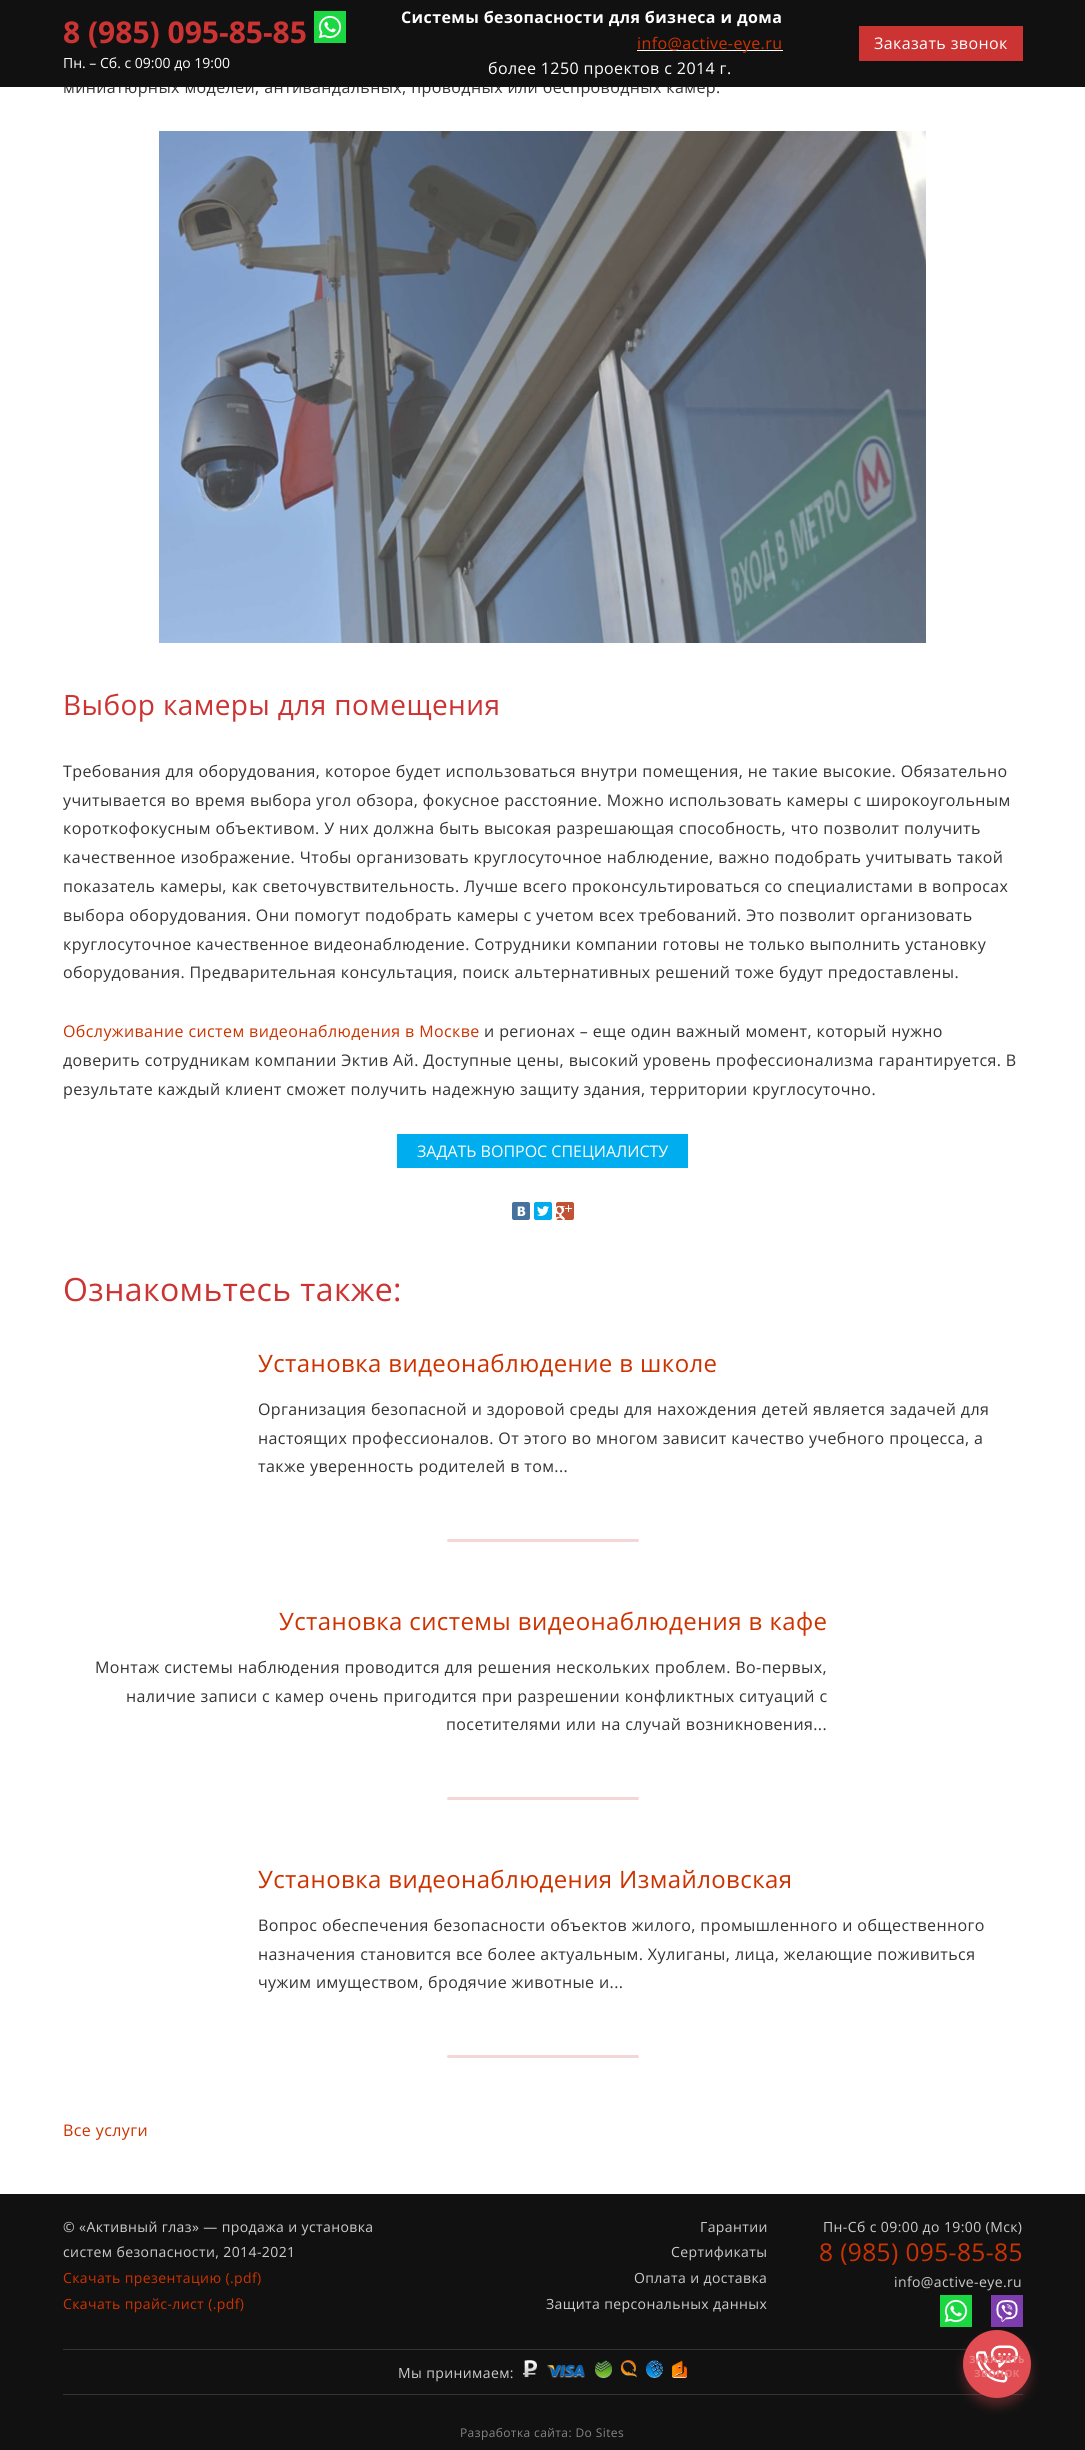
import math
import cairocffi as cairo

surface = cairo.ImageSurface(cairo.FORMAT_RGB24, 1085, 2450)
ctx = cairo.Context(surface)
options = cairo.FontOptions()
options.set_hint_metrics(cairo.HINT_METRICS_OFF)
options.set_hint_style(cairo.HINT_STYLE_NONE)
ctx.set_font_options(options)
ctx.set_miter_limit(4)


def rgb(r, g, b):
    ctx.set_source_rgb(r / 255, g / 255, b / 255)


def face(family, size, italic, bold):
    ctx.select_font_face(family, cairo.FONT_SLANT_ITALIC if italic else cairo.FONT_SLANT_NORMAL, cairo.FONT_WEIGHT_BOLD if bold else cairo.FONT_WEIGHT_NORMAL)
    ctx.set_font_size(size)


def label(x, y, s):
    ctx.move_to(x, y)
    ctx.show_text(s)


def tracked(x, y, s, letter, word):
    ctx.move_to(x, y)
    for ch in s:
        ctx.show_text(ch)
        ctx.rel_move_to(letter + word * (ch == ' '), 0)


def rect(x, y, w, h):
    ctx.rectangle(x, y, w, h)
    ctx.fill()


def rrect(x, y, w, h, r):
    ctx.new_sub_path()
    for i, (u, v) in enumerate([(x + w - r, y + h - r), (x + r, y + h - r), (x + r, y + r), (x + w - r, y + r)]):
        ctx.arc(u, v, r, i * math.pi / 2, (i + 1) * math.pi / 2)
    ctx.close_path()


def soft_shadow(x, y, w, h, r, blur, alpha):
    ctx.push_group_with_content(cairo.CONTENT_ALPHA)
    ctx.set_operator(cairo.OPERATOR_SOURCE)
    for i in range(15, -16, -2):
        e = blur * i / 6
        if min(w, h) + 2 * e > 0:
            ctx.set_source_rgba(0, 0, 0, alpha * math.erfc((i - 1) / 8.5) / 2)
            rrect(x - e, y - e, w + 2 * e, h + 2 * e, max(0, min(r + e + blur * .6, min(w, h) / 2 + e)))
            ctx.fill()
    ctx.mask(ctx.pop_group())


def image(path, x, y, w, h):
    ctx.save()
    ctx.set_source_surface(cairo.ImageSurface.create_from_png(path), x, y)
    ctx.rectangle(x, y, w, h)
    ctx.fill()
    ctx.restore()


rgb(255, 255, 255)
ctx.paint()
face('Open Sans', 16, 0, 0)
rgb(51, 51, 51)
tracked(63, 93, 'миниатюрных моделей, антивандальных, проводных или беспроводных камер.', 0.4, 0)
rgb(17, 17, 17)
rect(0, 0, 1085, 87)
face('Open Sans', 30, 0, 1)
rgb(204, 51, 51)
label(63, 43, '8 (985) 095-85-85')
image('image0.png', 314, 11, 32, 32)
face('Open Sans', 14, 0, 0)
rgb(255, 255, 255)
label(63, 68, 'Пн. – Cб. с 09:00 до 19:00')
face('Open Sans', 16, 0, 1)
tracked(401, 23, 'Системы безопасности для бизнеса и дома', 0.4, 0)
rect(637, 50, 146, 1)
face('Open Sans', 16, 0, 0)
rgb(204, 51, 0)
tracked(637, 49, 'info@active-eye.ru', 0.4, 0)
rgb(255, 255, 255)
tracked(488, 74, 'более 1250 проектов с 2014 г.', 0.4, 0)
rgb(204, 51, 51)
rect(859, 26, 164, 35)
rgb(255, 255, 255)
tracked(874, 49, 'Заказать звонок', 0.4, 0)
image('image1.png', 159, 131, 767, 512)
face('Open Sans', 28, 0, 0)
rgb(204, 51, 51)
tracked(63, 715, 'Выбор камеры для помещения', 0.4, 0)
face('Open Sans', 16, 0, 0)
rgb(51, 51, 51)
tracked(63, 777, 'Требования для оборудования, которое будет использоваться внутри помещения, не такие высокие. Обязательно', 0.4, 0)
tracked(63, 806, 'учитывается во время выбора угол обзора, фокусное расстояние. Можно использовать камеры с широкоугольным', 0.4, 0)
tracked(63, 834, 'короткофокусным объективом. У них должна быть высокая разрешающая способность, что позволит получить', 0.4, 0)
tracked(63, 863, 'качественное изображение. Чтобы организовать круглосуточное наблюдение, важно подобрать учитывать такой', 0.4, 0)
tracked(63, 892, 'показатель камеры, как светочувствительность. Лучше всего проконсультироваться со специалистами в вопросах', 0.4, 0)
tracked(63, 921, 'выбора оборудования. Они помогут подобрать камеры с учетом всех требований. Это позволит организовать', 0.4, 0)
tracked(63, 950, 'круглосуточное качественное видеонаблюдение. Сотрудники компании готовы не только выполнить установку', 0.4, 0)
tracked(63, 978, 'оборудования. Предварительная консультация, поиск альтернативных решений тоже будут предоставлены.', 0.4, 0)
rgb(204, 51, 0)
tracked(63, 1037, 'Обслуживание систем видеонаблюдения в Москве', 0.4, 0)
rgb(51, 51, 51)
tracked(484, 1037, 'и регионах – еще один важный момент, который нужно', 0.4, 0)
tracked(63, 1066, 'доверить сотрудникам компании Эктив Ай. Доступные цены, высокий уровень профессионализма гарантируется. В', 0.4, 0)
tracked(63, 1095, 'результате каждый клиент сможет получить надежную защиту здания, территории круглосуточно.', 0.4, 0)
rgb(0, 174, 239)
rect(397, 1134, 291, 34)
rgb(255, 255, 255)
label(417, 1157, 'ЗАДАТЬ ВОПРОС СПЕЦИАЛИСТУ')
rgb(72, 114, 158)
rrect(512, 1202, 18, 18, 2)
ctx.fill()
image('image2.png', 517, 1206, 9, 10)
rgb(0, 172, 237)
rrect(534, 1202, 18, 18, 2)
ctx.fill()
image('image3.png', 537, 1206, 12, 10)
rgb(194, 82, 52)
rrect(556, 1202, 18, 18, 2)
ctx.fill()
image('image4.png', 556, 1205, 16, 15)
face('Open Sans', 32, 0, 0)
rgb(204, 51, 51)
tracked(63, 1301, 'Ознакомьтесь также:', 0.4, 0)
face('Open Sans', 24, 0, 0)
rgb(204, 51, 0)
tracked(258, 1372, 'Установка видеонаблюдение в школе', 0.4, 0)
face('Open Sans', 16, 0, 0)
rgb(51, 51, 51)
tracked(258, 1415, 'Организация безопасной и здоровой среды для нахождения детей является задачей для', 0.4, 0)
tracked(258, 1444, 'настоящих профессионалов. От этого во многом зависит качество учебного процесса, а', 0.4, 0)
tracked(258, 1472, 'также уверенность родителей в том...', 0.4, 0)
rgb(245, 214, 214)
rrect(447, 1539, 192, 3, 1.5)
ctx.fill()
face('Open Sans', 24, 0, 0)
rgb(204, 51, 0)
tracked(279, 1630, 'Установка системы видеонаблюдения в кафе', 0.4, 0)
face('Open Sans', 16, 0, 0)
rgb(51, 51, 51)
tracked(95, 1673, 'Монтаж системы наблюдения проводится для решения нескольких проблем. Во-первых,', 0.4, 0)
tracked(126, 1702, 'наличие записи с камер очень пригодится при разрешении конфликтных ситуаций с', 0.4, 0)
tracked(446, 1730, 'посетителями или на случай возникновения...', 0.4, 0)
rgb(245, 214, 214)
rrect(447, 1797, 192, 3, 1.5)
ctx.fill()
face('Open Sans', 24, 0, 0)
rgb(204, 51, 0)
tracked(258, 1888, 'Установка видеонаблюдения Измайловская', 0.4, 0)
face('Open Sans', 16, 0, 0)
rgb(51, 51, 51)
tracked(258, 1931, 'Вопрос обеспечения безопасности объектов жилого, промышленного и общественного', 0.4, 0)
tracked(258, 1960, 'назначения становится все более актуальным. Хулиганы, лица, желающие поживиться', 0.4, 0)
tracked(258, 1988, 'чужим имуществом, бродячие животные и...', 0.4, 0)
rgb(245, 214, 214)
rrect(447, 2055, 192, 3, 1.5)
ctx.fill()
rgb(204, 51, 0)
tracked(63, 2136, 'Все услуги', 0.4, 0)
rgb(17, 17, 17)
rect(0, 2194, 1085, 256)
face('Open Sans', 14, 0, 0)
rgb(204, 204, 204)
tracked(63, 2232, '© «Активный глаз» — продажа и установка', 0.4, 0)
tracked(63, 2257, 'систем безопасности, 2014-2021', 0.4, 0)
rgb(204, 51, 0)
tracked(63, 2283, 'Скачать презентацию (.pdf)', 0.4, 0)
tracked(63, 2309, 'Скачать прайс-лист (.pdf)', 0.4, 0)
rgb(204, 204, 204)
tracked(700, 2232, 'Гарантии', 0.4, 0)
tracked(671, 2257, 'Сертификаты', 0.4, 0)
tracked(634, 2283, 'Оплата и доставка', 0.4, 0)
tracked(546, 2309, 'Защита персональных данных', 0.4, 0)
tracked(823, 2232, 'Пн-Сб с 09:00 до 19:00 (Мск)', 0.4, 0)
face('Open Sans', 24.5, 0, 0)
rgb(204, 51, 0)
tracked(819, 2261, '8 (985) 095-85-85', 0.4, 0)
face('Open Sans', 14, 0, 0)
rgb(204, 204, 204)
tracked(894, 2287, 'info@active-eye.ru', 0.4, 0)
image('image0.png', 940, 2295, 32, 32)
image('image5.png', 991, 2295, 32, 32)
rgb(51, 51, 51)
rect(63, 2349, 904, 1)
rect(63, 2394, 960, 1)
rgb(204, 204, 204)
tracked(398, 2378, 'Мы принимаем:', 0.4, 0)
image('image6.png', 523, 2360, 14, 18)
image('image7.png', 547, 2365, 38, 13)
image('image8.png', 595, 2360, 17, 18)
image('image9.png', 621, 2360, 16, 18)
image('image10.png', 646, 2360, 17, 18)
image('image11.png', 672, 2360, 15, 18)
face('Open Sans', 12, 0, 0)
rgb(132, 132, 132)
tracked(460, 2437, 'Разработка сайта: Do Sites', 0.4, 0)
rgb(225, 77, 83)
soft_shadow(963, 2338, 68, 68, 34, 5, 0.3)
rgb(225, 77, 83)
ctx.arc(997, 2364, 33, 0, 2 * math.pi)
ctx.fill_preserve()
ctx.stroke()
image('image12.png', 976, 2345, 42, 38)
face('Open Sans', 10, 0, 1)
rgb(234, 130, 134)
tracked(969, 2363, 'ЗАКАЗАТЬ', 0.4, 0)
rgb(233, 122, 127)
tracked(974, 2377, 'ЗВОНОК', 0.4, 0)
surface.write_to_png('render.png')
